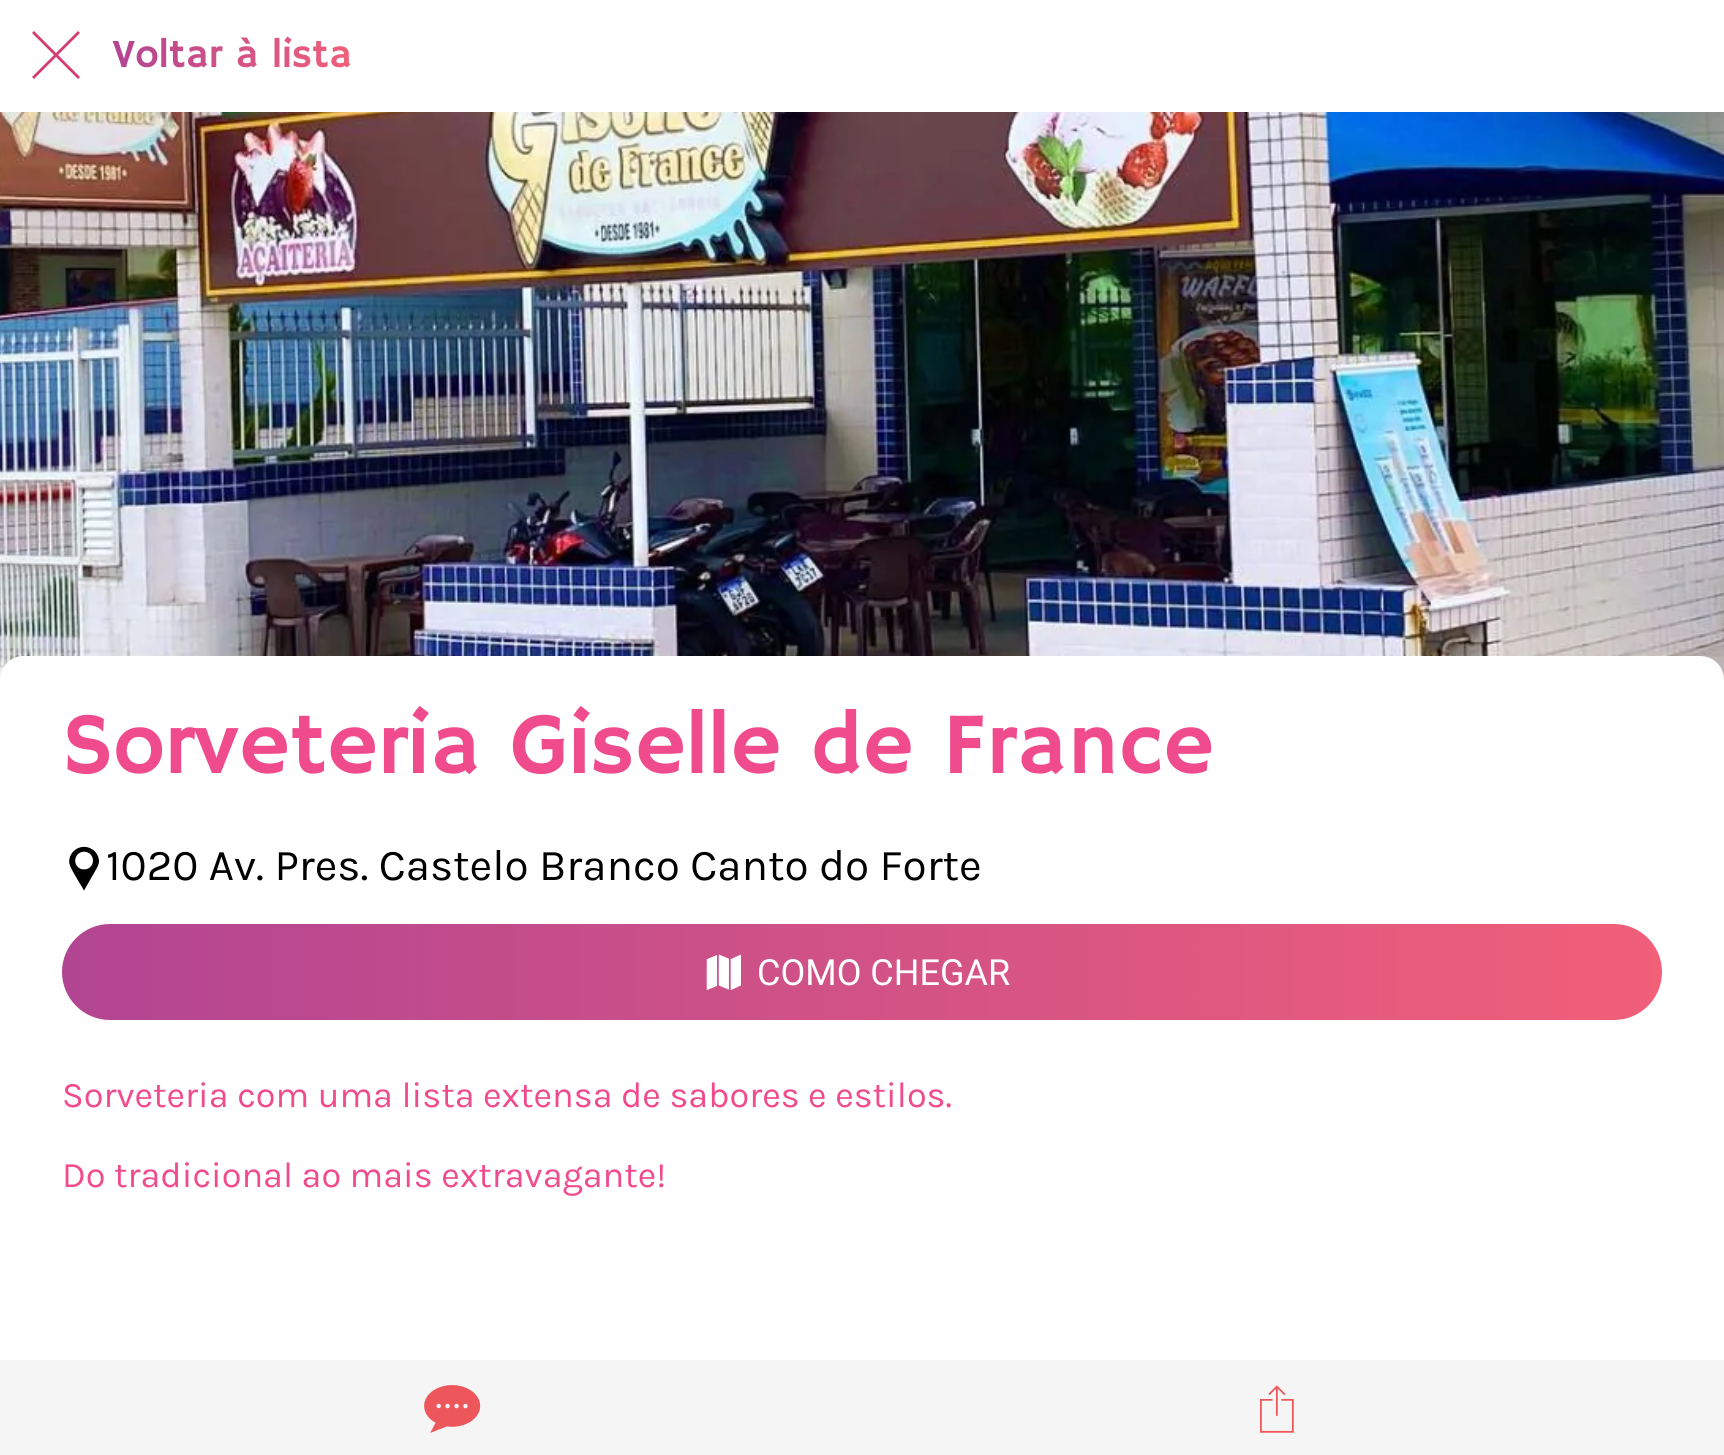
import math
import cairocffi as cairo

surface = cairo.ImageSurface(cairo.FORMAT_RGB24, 1724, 1455)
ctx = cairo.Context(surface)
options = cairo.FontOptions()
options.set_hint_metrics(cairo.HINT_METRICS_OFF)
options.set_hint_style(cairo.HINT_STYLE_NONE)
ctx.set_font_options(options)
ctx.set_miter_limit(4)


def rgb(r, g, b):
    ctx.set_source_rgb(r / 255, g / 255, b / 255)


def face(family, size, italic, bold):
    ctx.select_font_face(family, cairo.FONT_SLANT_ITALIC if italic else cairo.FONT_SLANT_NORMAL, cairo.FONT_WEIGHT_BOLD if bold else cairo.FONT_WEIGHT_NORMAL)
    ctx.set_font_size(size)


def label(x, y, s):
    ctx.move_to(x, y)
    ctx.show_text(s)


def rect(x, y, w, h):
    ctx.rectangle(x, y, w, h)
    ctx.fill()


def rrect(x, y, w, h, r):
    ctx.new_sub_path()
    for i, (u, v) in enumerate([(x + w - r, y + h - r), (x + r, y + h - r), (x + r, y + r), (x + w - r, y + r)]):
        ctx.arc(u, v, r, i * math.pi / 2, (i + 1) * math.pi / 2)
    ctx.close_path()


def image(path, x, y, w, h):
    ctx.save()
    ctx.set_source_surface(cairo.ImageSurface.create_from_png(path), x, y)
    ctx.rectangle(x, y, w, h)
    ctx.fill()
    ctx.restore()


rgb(255, 255, 255)
ctx.paint()
rgb(211, 62, 114)
ctx.new_path()
ctx.move_to(80, 33)
ctx.line_to(78, 31)
ctx.line_to(56, 53)
ctx.line_to(34, 31)
ctx.line_to(32, 33)
ctx.line_to(54, 55)
ctx.line_to(32, 77)
ctx.line_to(34, 79)
ctx.line_to(56, 57)
ctx.line_to(78, 79)
ctx.line_to(80, 77)
ctx.line_to(58, 55)
ctx.close_path()
ctx.fill()
face('Hammersmith One', 40, 0, 0)
gradient = cairo.LinearGradient(112, 56, 352, 56)
gradient.add_color_stop_rgba(0, 0.698, 0.271, 0.573, 1)
gradient.add_color_stop_rgba(1, 0.945, 0.373, 0.475, 1)
ctx.set_source(gradient)
label(112, 67, 'Voltar à lista')
image('image0.png', 0, 112, 1724, 568)
rgb(255, 255, 255)
ctx.new_path()
ctx.move_to(24, 656)
ctx.line_to(1700, 656)
ctx.curve_to(1713.5, 656, 1724, 666.5, 1724, 680)
ctx.line_to(1724, 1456)
ctx.line_to(0, 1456)
ctx.line_to(0, 680)
ctx.curve_to(0, 666.5, 10.5, 656, 24, 656)
ctx.close_path()
ctx.fill()
face('Hammersmith One', 88, 0, 0)
rgb(240, 75, 141)
label(62, 773, 'Sorveteria Giselle de France')
image('image1.png', 69, 846, 30, 45)
face('Karla', 44, 0, 0)
rgb(0, 0, 0)
label(106, 880, '1020 Av. Pres. Castelo Branco Canto do Forte')
gradient = cairo.LinearGradient(62, 972, 1662, 972)
gradient.add_color_stop_rgba(0, 0.698, 0.271, 0.573, 1)
gradient.add_color_stop_rgba(1, 0.945, 0.373, 0.475, 1)
ctx.set_source(gradient)
rrect(62, 924, 1600, 96, 48)
ctx.fill()
image('image2.png', 706, 954, 35, 36)
face('Roboto', 36, 0, 0)
rgb(255, 255, 255)
label(757, 985, 'COMO CHEGAR')
face('Karla', 36, 0, 0)
rgb(240, 75, 141)
label(62, 1107, 'Sorveteria com uma lista extensa de sabores e estilos.')
label(62, 1187, 'Do tradicional ao mais extravagante!')
rgb(245, 245, 245)
rect(0, 1360, 1724, 95)
image('image3.png', 424, 1385, 57, 48)
image('image4.png', 1260, 1385, 34, 48)
surface.write_to_png('render.png')
